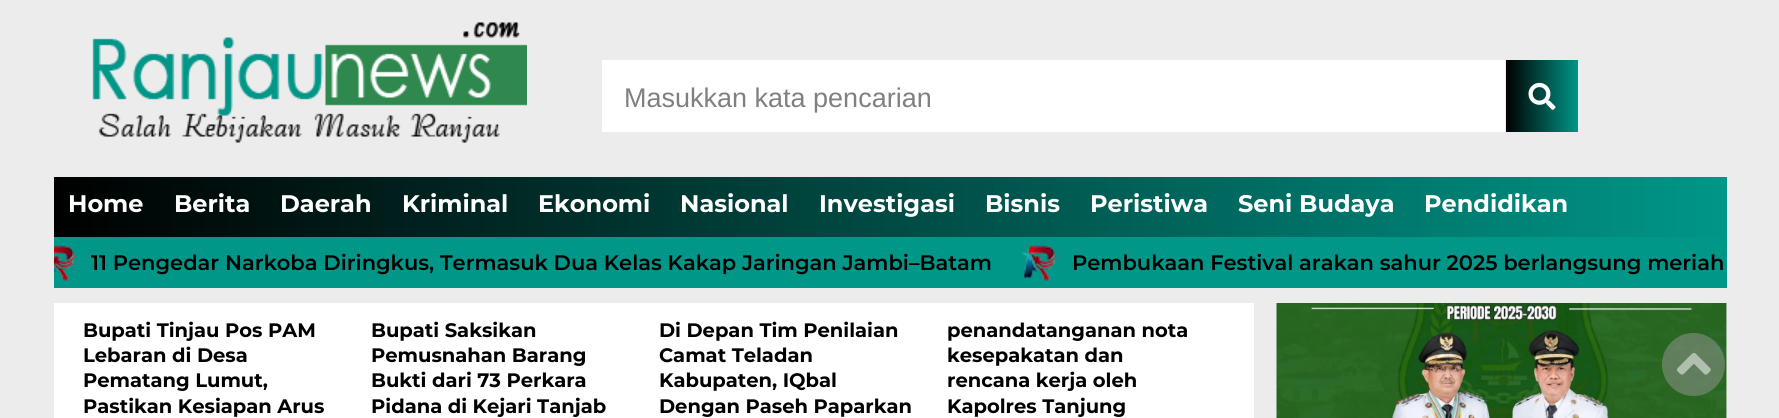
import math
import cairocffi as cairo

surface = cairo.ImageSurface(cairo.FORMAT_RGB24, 1779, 418)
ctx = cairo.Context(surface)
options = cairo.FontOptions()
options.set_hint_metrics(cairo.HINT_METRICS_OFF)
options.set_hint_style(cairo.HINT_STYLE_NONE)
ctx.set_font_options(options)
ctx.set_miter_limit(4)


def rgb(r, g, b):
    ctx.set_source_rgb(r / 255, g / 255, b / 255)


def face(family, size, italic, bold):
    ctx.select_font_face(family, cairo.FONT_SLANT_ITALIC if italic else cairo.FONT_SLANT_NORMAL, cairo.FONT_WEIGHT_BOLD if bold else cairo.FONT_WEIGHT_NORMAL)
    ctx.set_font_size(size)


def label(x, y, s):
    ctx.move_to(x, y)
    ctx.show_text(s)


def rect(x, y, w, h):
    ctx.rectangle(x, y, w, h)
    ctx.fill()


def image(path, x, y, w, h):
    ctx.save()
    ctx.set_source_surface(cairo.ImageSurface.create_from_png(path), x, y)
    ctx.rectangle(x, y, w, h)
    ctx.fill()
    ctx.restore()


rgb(236, 236, 236)
ctx.paint()
image('image0.png', 92, 22, 435, 121)
rgb(255, 255, 255)
rect(602, 60, 903, 72)
face('Liberation Sans', 27, 0, 0)
rgb(128, 128, 128)
label(624, 107, 'Masukkan kata pencarian')
gradient = cairo.LinearGradient(1506, 96, 1578, 96)
gradient.add_color_stop_rgba(0, 0, 0, 0, 1)
gradient.add_color_stop_rgba(1, 0, 0.588, 0.533, 1)
ctx.set_source(gradient)
rect(1506, 60, 72, 72)
image('image1.png', 1528, 82, 28, 28)
gradient = cairo.LinearGradient(54, 207, 1727, 207)
gradient.add_color_stop_rgba(0, 0, 0, 0, 1)
gradient.add_color_stop_rgba(1, 0, 0.588, 0.533, 1)
ctx.set_source(gradient)
rect(54, 177, 1673, 60)
face('Montserrat', 24, 0, 1)
rgb(255, 255, 255)
label(68, 212, 'Home')
label(174, 212, 'Berita')
label(280, 212, 'Daerah')
label(402, 212, 'Kriminal')
label(538, 212, 'Ekonomi')
label(680, 212, 'Nasional')
label(819, 212, 'Investigasi')
label(985, 212, 'Bisnis')
label(1090, 212, 'Peristiwa')
label(1238, 212, 'Seni Budaya')
label(1424, 212, 'Pendidikan')
rgb(0, 150, 136)
rect(54, 237, 1673, 51)
image('image2.png', 54, 245, 22, 36)
face('Montserrat SemiBold', 21, 0, 0)
rgb(0, 0, 0)
label(91, 270, '11 Pengedar Narkoba Diringkus, Termasuk Dua Kelas Kakap Jaringan Jambi–Batam')
image('image3.png', 1021, 245, 36, 36)
label(1072, 270, 'Pembukaan Festival arakan sahur 2025 berlangsung meriah')
rgb(255, 255, 255)
rect(54, 303, 1200, 115)
face('Montserrat', 19.5, 0, 1)
rgb(0, 0, 0)
label(83, 337, 'Bupati Tinjau Pos PAM')
label(83, 362, 'Lebaran di Desa')
label(83, 387, 'Pematang Lumut,')
label(83, 413, 'Pastikan Kesiapan Arus')
label(371, 337, 'Bupati Saksikan')
label(371, 362, 'Pemusnahan Barang')
label(371, 387, 'Bukti dari 73 Perkara')
label(371, 413, 'Pidana di Kejari Tanjab')
label(659, 337, 'Di Depan Tim Penilaian')
label(659, 362, 'Camat Teladan')
label(659, 387, 'Kabupaten, IQbal')
label(659, 413, 'Dengan Paseh Paparkan')
label(947, 337, 'penandatanganan nota')
label(947, 362, 'kesepakatan dan')
label(947, 387, 'rencana kerja oleh')
label(947, 413, 'Kapolres Tanjung')
rgb(255, 255, 255)
rect(1726, 303, 1, 115)
image('image4.png', 1276, 303, 451, 115)
ctx.set_source_rgba(0.6, 0.6, 0.6, 0.5)
ctx.arc(1693.5, 364.5, 31.5, 0, 2 * math.pi)
ctx.fill()
image('image5.png', 1677, 353, 34, 22)
surface.write_to_png('render.png')
